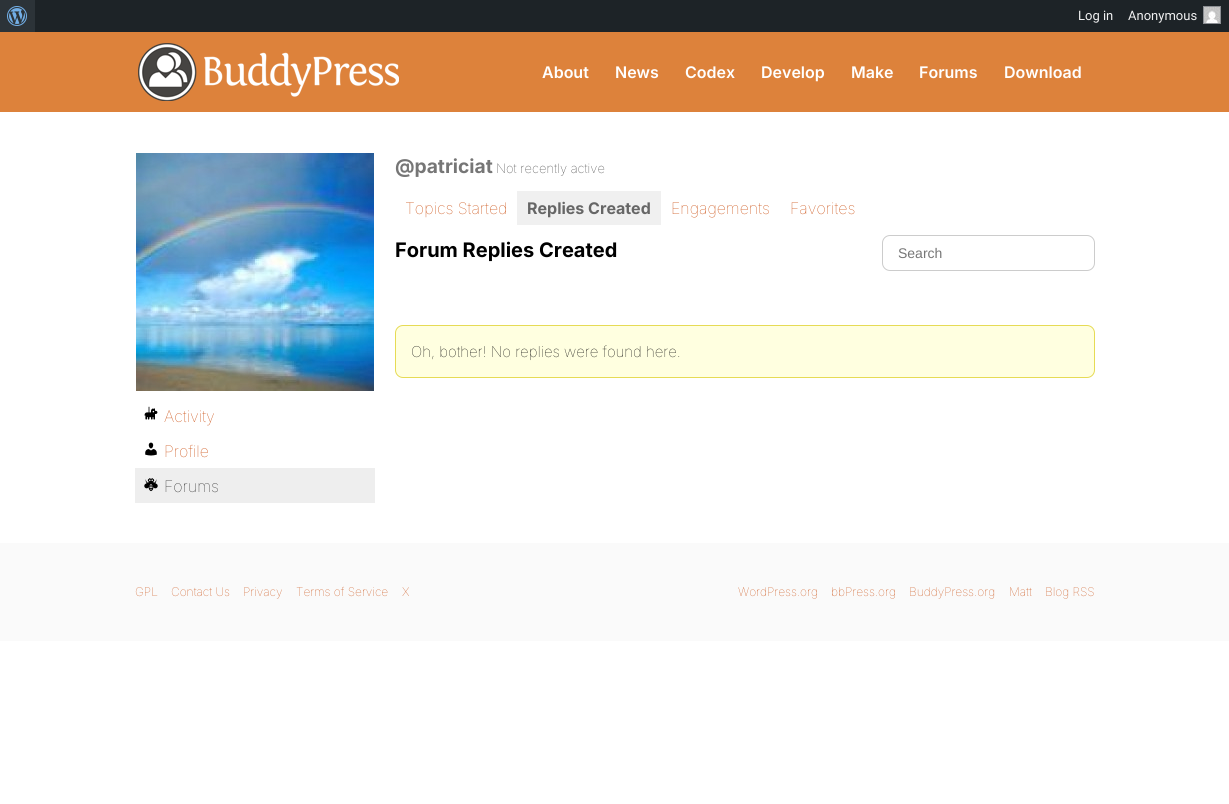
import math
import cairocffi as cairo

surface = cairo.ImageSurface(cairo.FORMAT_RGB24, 1229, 804)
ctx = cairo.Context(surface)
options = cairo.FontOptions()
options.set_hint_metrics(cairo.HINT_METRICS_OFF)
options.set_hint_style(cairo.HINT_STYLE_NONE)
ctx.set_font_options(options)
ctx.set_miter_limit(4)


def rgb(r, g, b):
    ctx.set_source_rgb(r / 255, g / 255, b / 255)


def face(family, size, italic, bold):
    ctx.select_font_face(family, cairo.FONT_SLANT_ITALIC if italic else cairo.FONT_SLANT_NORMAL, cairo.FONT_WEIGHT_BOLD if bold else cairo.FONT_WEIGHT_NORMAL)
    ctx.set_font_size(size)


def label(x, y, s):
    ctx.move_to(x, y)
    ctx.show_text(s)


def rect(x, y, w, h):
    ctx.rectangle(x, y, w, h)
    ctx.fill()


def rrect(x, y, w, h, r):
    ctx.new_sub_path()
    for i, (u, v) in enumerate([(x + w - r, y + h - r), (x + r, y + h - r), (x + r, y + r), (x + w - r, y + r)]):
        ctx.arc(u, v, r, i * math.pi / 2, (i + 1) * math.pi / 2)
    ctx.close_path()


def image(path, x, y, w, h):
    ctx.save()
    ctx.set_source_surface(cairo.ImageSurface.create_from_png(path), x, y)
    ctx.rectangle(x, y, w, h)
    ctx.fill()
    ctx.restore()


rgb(255, 255, 255)
ctx.paint()
rgb(29, 35, 39)
rect(35, 0, 1194, 32)
rgb(44, 51, 56)
rect(0, 0, 35, 32)
image('image0.png', 7, 6, 20, 20)
face('Roboto', 13, 0, 0)
rgb(240, 240, 241)
label(1078, 20, 'Log in')
ctx.rectangle(1203.5, 6.5, 17, 17)
rgb(140, 143, 148)
ctx.set_line_width(1)
ctx.stroke()
rgb(240, 240, 241)
label(1128, 20, 'Anonymous')
image('image1.png', 1204, 7, 16, 16)
rgb(221, 130, 59)
rect(0, 32, 1229, 80)
image('image2.png', 138, 43, 261, 58)
face('Inter SemiBold', 16, 0, 0)
rgb(255, 255, 255)
label(542, 78, 'About')
label(615, 78, 'News')
label(685, 78, 'Codex')
label(761, 78, 'Develop')
label(851, 78, 'Make')
label(919, 78, 'Forums')
label(1004, 78, 'Download')
face('Inter', 19.25, 0, 1)
rgb(118, 118, 118)
label(395, 173, '@patriciat')
face('Inter Thin', 13, 0, 0)
rgb(34, 34, 34)
label(496, 173, 'Not recently active')
face('Inter Thin', 16, 0, 0)
rgb(199, 66, 0)
label(405, 214, 'Topics Started')
rgb(240, 240, 240)
rect(517, 191, 144, 34)
face('Inter', 16, 0, 1)
rgb(102, 102, 102)
label(527, 214, 'Replies Created')
face('Inter Thin', 16, 0, 0)
rgb(199, 66, 0)
label(671, 214, 'Engagements')
label(790, 214, 'Favorites')
face('Inter', 20, 0, 1)
rgb(0, 0, 0)
label(395, 257, 'Forum Replies Created')
rrect(882.5, 235.5, 212, 35, 7.5)
rgb(204, 204, 204)
ctx.stroke()
face('Liberation Sans', 14, 0, 0)
rgb(118, 118, 118)
label(898, 258, 'Search')
rgb(255, 255, 224)
rrect(395.5, 325.5, 699, 52, 7.5)
ctx.fill_preserve()
rgb(230, 219, 85)
ctx.stroke()
face('Inter Thin', 15, 0, 0)
rgb(0, 0, 0)
label(411, 357, 'Oh, bother! No replies were found here.')
image('image3.png', 136, 153, 238, 238)
image('image4.png', 144, 406, 14, 14)
face('Inter Thin', 16, 0, 0)
rgb(199, 66, 0)
label(164, 422, 'Activity')
image('image5.png', 145, 442, 12, 14)
label(164, 457, 'Profile')
rgb(238, 238, 238)
rect(135, 468, 240, 35)
image('image6.png', 144, 478, 14, 14)
rgb(34, 34, 34)
label(164, 492, 'Forums')
rgb(250, 250, 250)
rect(0, 543, 1229, 98)
face('Inter Thin', 12, 0, 0)
rgb(199, 66, 0)
label(135, 596, 'GPL')
label(171, 596, 'Contact Us')
label(243, 596, 'Privacy')
label(296, 596, 'Terms of Service')
label(402, 596, 'X')
label(738, 596, 'WordPress.org')
label(831, 596, 'bbPress.org')
label(909, 596, 'BuddyPress.org')
label(1009, 596, 'Matt')
label(1045, 596, 'Blog RSS')
surface.write_to_png('render.png')
